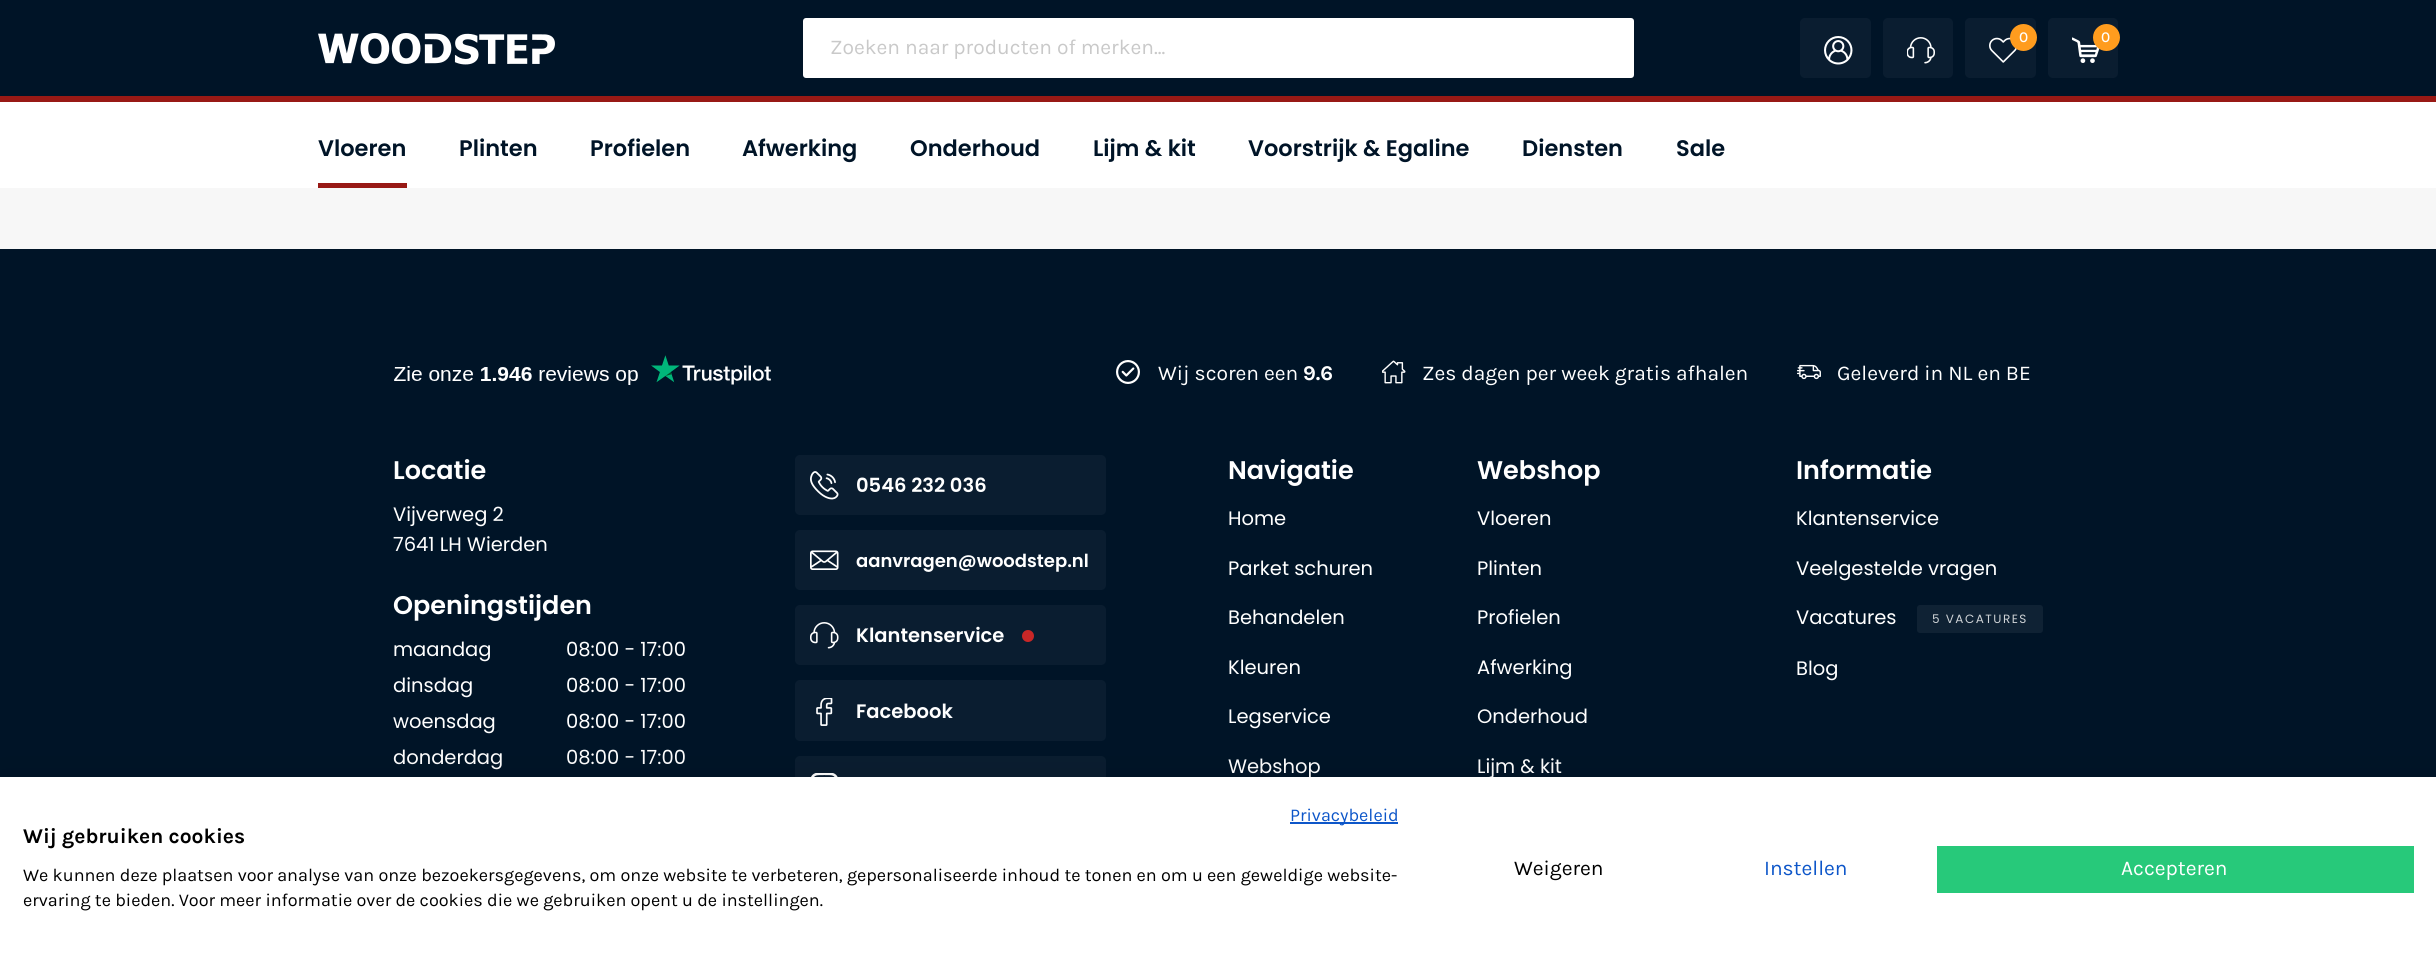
import math
import cairocffi as cairo

surface = cairo.ImageSurface(cairo.FORMAT_RGB24, 2436, 954)
ctx = cairo.Context(surface)
options = cairo.FontOptions()
options.set_hint_metrics(cairo.HINT_METRICS_OFF)
options.set_hint_style(cairo.HINT_STYLE_NONE)
ctx.set_font_options(options)
ctx.set_miter_limit(4)


def rgb(r, g, b):
    ctx.set_source_rgb(r / 255, g / 255, b / 255)


def face(family, size, italic, bold):
    ctx.select_font_face(family, cairo.FONT_SLANT_ITALIC if italic else cairo.FONT_SLANT_NORMAL, cairo.FONT_WEIGHT_BOLD if bold else cairo.FONT_WEIGHT_NORMAL)
    ctx.set_font_size(size)


def label(x, y, s):
    ctx.move_to(x, y)
    ctx.show_text(s)


def tracked(x, y, s, letter, word):
    ctx.move_to(x, y)
    for ch in s:
        ctx.show_text(ch)
        ctx.rel_move_to(letter + word * (ch == ' '), 0)


def rect(x, y, w, h):
    ctx.rectangle(x, y, w, h)
    ctx.fill()


def rrect(x, y, w, h, r):
    ctx.new_sub_path()
    for i, (u, v) in enumerate([(x + w - r, y + h - r), (x + r, y + h - r), (x + r, y + r), (x + w - r, y + r)]):
        ctx.arc(u, v, r, i * math.pi / 2, (i + 1) * math.pi / 2)
    ctx.close_path()


def soft_shadow(x, y, w, h, r, blur, alpha):
    ctx.push_group_with_content(cairo.CONTENT_ALPHA)
    ctx.set_operator(cairo.OPERATOR_SOURCE)
    for i in range(15, -16, -2):
        e = blur * i / 6
        if min(w, h) + 2 * e > 0:
            ctx.set_source_rgba(0, 0, 0, alpha * math.erfc((i - 1) / 8.5) / 2)
            rrect(x - e, y - e, w + 2 * e, h + 2 * e, max(0, min(r + e + blur * .6, min(w, h) / 2 + e)))
            ctx.fill()
    ctx.mask(ctx.pop_group())


def image(path, x, y, w, h):
    ctx.save()
    ctx.set_source_surface(cairo.ImageSurface.create_from_png(path), x, y)
    ctx.rectangle(x, y, w, h)
    ctx.fill()
    ctx.restore()


rgb(0, 20, 39)
ctx.paint()
rgb(152, 25, 21)
rect(0, 96, 2436, 6)
image('image0.png', 318, 33, 237, 32)
rgb(255, 255, 255)
rrect(803, 18, 831, 60, 3)
ctx.fill()
face('Karla', 21, 0, 0)
rgb(201, 201, 201)
label(830, 54, 'Zoeken naar producten of merken...')
rgb(10, 29, 48)
rrect(1800, 18, 71, 60, 5)
ctx.fill()
image('image1.png', 1824, 36, 29, 29)
rrect(1883, 18, 70, 60, 5)
ctx.fill()
image('image2.png', 1907, 37, 28, 27)
rrect(1965, 18, 71, 60, 5)
ctx.fill()
image('image3.png', 1989, 37, 28, 26)
rgb(255, 156, 30)
ctx.arc(2023.5, 37.5, 13.5, 0, 2 * math.pi)
ctx.fill()
face('Karla Medium', 15, 0, 0)
rgb(255, 255, 255)
label(2019, 42, '0')
rgb(10, 29, 48)
rrect(2048, 18, 70, 60, 5)
ctx.fill()
image('image4.png', 2072, 37, 28, 26)
rgb(255, 156, 30)
ctx.arc(2106.5, 37.5, 13.5, 0, 2 * math.pi)
ctx.fill()
rgb(255, 255, 255)
label(2101, 42, '0')
rect(0, 102, 2436, 86)
rgb(152, 25, 21)
rect(318, 183, 89, 5)
face('Poppins SemiBold', 22.5, 0, 0)
rgb(0, 20, 39)
label(318, 156, 'Vloeren')
label(459, 156, 'Plinten')
label(590, 156, 'Profielen')
label(742, 156, 'Afwerking')
label(910, 156, 'Onderhoud')
label(1093, 156, 'Lijm & kit')
label(1248, 156, 'Voorstrijk & Egaline')
label(1522, 156, 'Diensten')
label(1676, 156, 'Sale')
rgb(247, 247, 247)
rect(0, 188, 2436, 61)
image('image5.png', 394, 355, 377, 30)
image('image6.png', 1116, 360, 24, 24)
face('Karla', 21, 0, 0)
rgb(255, 255, 255)
label(1158, 380, 'Wij scoren een')
face('Karla', 21, 0, 1)
label(1303, 380, '9.6')
image('image7.png', 1382, 360, 24, 24)
face('Karla', 21, 0, 0)
label(1422, 380, 'Zes dagen per week gratis afhalen')
image('image8.png', 1797, 364, 24, 16)
label(1837, 380, 'Geleverd in NL en BE')
face('Poppins SemiBold', 25.5, 0, 0)
label(393, 479, 'Locatie')
face('Poppins', 19.5, 0, 0)
label(393, 521, 'Vijverweg 2')
label(393, 551, '7641 LH Wierden')
face('Poppins SemiBold', 25.5, 0, 0)
label(393, 614, 'Openingstijden')
face('Poppins', 19.5, 0, 0)
label(393, 656, 'maandag')
label(566, 656, '08:00 - 17:00')
label(393, 692, 'dinsdag')
label(566, 692, '08:00 - 17:00')
label(393, 728, 'woensdag')
label(566, 728, '08:00 - 17:00')
label(393, 764, 'donderdag')
label(566, 764, '08:00 - 17:00')
rgb(10, 29, 48)
rrect(795, 455, 311, 60, 5)
ctx.fill()
image('image9.png', 810, 471, 29, 29)
face('Poppins SemiBold', 19.5, 0, 0)
rgb(255, 255, 255)
label(856, 492, '0546 232 036')
rgb(10, 29, 48)
rrect(795, 530, 311, 60, 5)
ctx.fill()
image('image10.png', 810, 550, 29, 20)
face('Poppins SemiBold', 18, 0, 0)
rgb(255, 255, 255)
label(856, 567, 'aanvragen@woodstep.nl')
rgb(10, 29, 48)
rrect(795, 605, 311, 60, 5)
ctx.fill()
image('image11.png', 810, 622, 29, 27)
face('Poppins SemiBold', 19.5, 0, 0)
rgb(255, 255, 255)
label(856, 642, 'Klantenservice')
rgb(201, 39, 39)
ctx.new_path()
ctx.arc(1028, 636, 6, 0, 2 * math.pi)
ctx.fill()
rgb(10, 29, 48)
rrect(795, 680, 311, 61, 5)
ctx.fill()
image('image12.png', 816, 698, 17, 28)
rgb(255, 255, 255)
label(856, 718, 'Facebook')
rgb(10, 29, 48)
rrect(795, 756, 311, 60, 5)
ctx.fill()
image('image13.png', 811, 773, 27, 4)
face('Poppins SemiBold', 25.5, 0, 0)
rgb(255, 255, 255)
label(1228, 479, 'Navigatie')
face('Poppins', 19.5, 0, 0)
label(1228, 525, 'Home')
label(1228, 575, 'Parket schuren')
label(1228, 624, 'Behandelen')
label(1228, 674, 'Kleuren')
label(1228, 723, 'Legservice')
label(1228, 773, 'Webshop')
face('Poppins SemiBold', 25.5, 0, 0)
label(1477, 479, 'Webshop')
face('Poppins', 19.5, 0, 0)
label(1477, 525, 'Vloeren')
label(1477, 575, 'Plinten')
label(1477, 624, 'Profielen')
label(1477, 674, 'Afwerking')
label(1477, 723, 'Onderhoud')
label(1477, 773, 'Lijm & kit')
face('Poppins SemiBold', 25.5, 0, 0)
label(1796, 479, 'Informatie')
face('Poppins', 19.5, 0, 0)
label(1796, 525, 'Klantenservice')
label(1796, 575, 'Veelgestelde vragen')
label(1796, 624, 'Vacatures')
rgb(15, 34, 52)
rrect(1917, 605, 126, 28, 3)
ctx.fill()
face('Poppins', 12, 0, 0)
rgb(207, 211, 214)
tracked(1932, 623, '5 VACATURES', 1.5, 0)
face('Poppins', 19.5, 0, 0)
rgb(255, 255, 255)
label(1796, 675, 'Blog')
rgb(0, 0, 0)
soft_shadow(0, 777, 2436, 177, 0, 18, 0.1)
rgb(255, 255, 255)
rect(0, 777, 2436, 177)
rgb(13, 86, 201)
rect(1290, 822, 108, 2)
face('Karla', 18, 0, 0)
label(1290, 821, 'Privacybeleid')
face('Karla', 21, 0, 1)
rgb(0, 0, 0)
label(23, 843, 'Wij gebruiken cookies')
face('Karla', 18, 0, 0)
label(23, 881, 'We kunnen deze plaatsen voor analyse van onze bezoekersgegevens, om onze website te verbeteren, gepersonaliseerde inhoud te tonen en om u een geweldige website-')
label(23, 906, 'ervaring te bieden. Voor meer informatie over de cookies die we gebruiken opent u de instellingen.')
face('Karla', 21, 0, 0)
label(1514, 875, 'Weigeren')
rgb(13, 86, 201)
label(1764, 875, 'Instellen')
rgb(39, 201, 122)
rect(1937, 846, 477, 47)
rgb(255, 255, 255)
label(2121, 875, 'Accepteren')
surface.write_to_png('render.png')
